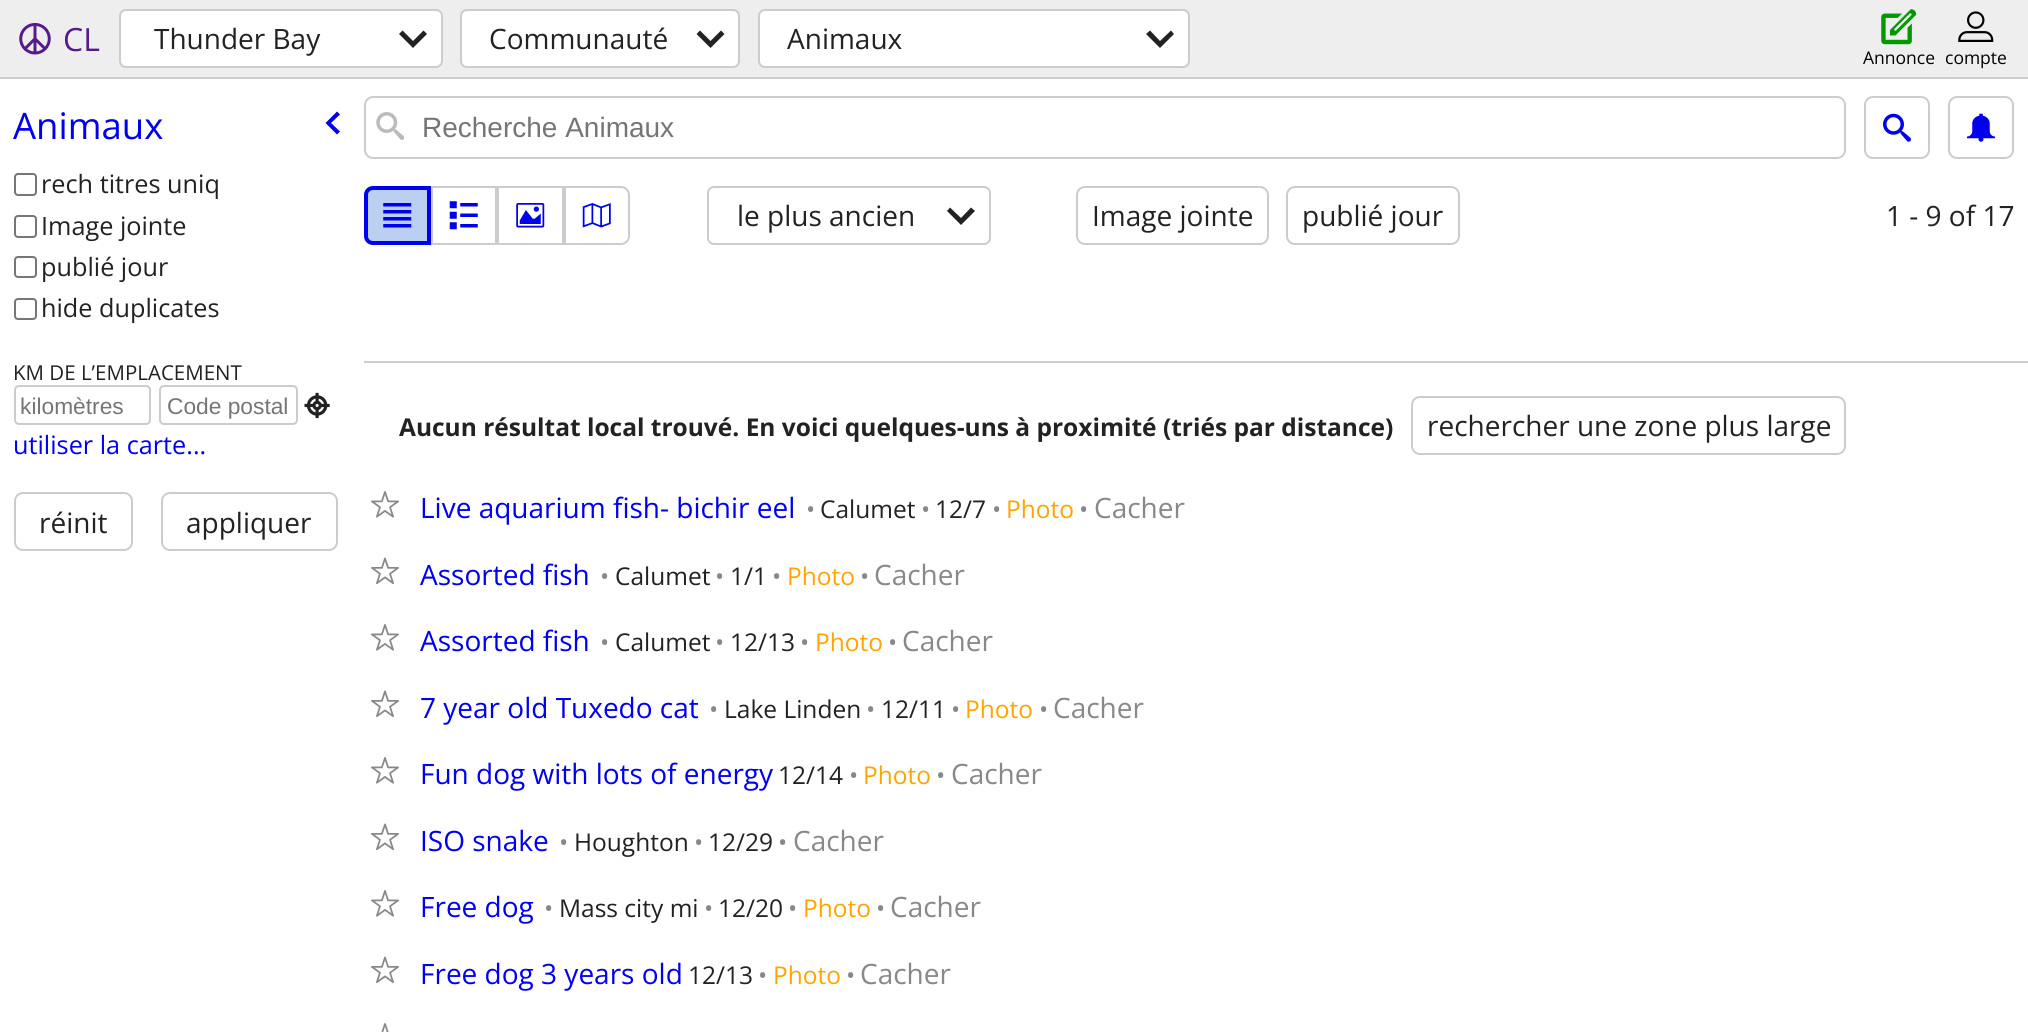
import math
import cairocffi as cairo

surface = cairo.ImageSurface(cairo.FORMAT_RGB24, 2028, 1032)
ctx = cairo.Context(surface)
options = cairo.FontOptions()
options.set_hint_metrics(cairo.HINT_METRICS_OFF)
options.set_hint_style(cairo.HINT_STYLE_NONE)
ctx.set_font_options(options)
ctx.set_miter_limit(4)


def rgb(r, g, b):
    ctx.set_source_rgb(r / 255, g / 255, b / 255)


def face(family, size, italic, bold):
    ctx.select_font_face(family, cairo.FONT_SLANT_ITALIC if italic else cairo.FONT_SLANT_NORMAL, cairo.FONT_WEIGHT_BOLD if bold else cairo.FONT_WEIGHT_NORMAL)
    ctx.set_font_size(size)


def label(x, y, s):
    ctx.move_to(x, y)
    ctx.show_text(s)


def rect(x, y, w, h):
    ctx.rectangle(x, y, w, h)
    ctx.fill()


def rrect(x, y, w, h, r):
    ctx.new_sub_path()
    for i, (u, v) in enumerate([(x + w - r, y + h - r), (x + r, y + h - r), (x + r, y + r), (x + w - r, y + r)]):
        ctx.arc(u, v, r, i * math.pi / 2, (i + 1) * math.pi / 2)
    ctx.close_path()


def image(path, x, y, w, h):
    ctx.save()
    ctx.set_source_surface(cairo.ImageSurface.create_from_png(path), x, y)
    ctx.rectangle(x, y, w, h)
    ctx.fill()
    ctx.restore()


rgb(255, 255, 255)
ctx.paint()
rgb(238, 238, 238)
rect(0, 0, 2028, 77)
rgb(204, 204, 204)
rect(0, 77, 2028, 2)
image('image0.png', 19, 23, 32, 32)
face('Open Sans', 32, 0, 0)
rgb(85, 26, 139)
label(63, 51, 'CL')
rgb(255, 255, 255)
rrect(120, 10, 322, 57, 6)
ctx.fill_preserve()
rgb(204, 204, 204)
ctx.stroke()
face('Open Sans', 28, 0, 0)
rgb(34, 34, 34)
label(154, 49, 'Thunder Bay')
ctx.new_path()
ctx.move_to(427, 34)
ctx.line_to(423.5, 30.5)
ctx.line_to(413, 41)
ctx.line_to(402.5, 30.5)
ctx.line_to(399, 34)
ctx.line_to(413, 48)
ctx.close_path()
ctx.fill()
rgb(255, 255, 255)
rrect(461, 10, 278, 57, 6)
ctx.fill_preserve()
rgb(204, 204, 204)
ctx.stroke()
rgb(34, 34, 34)
label(489, 49, 'Communauté')
ctx.new_path()
ctx.move_to(724.5, 34)
ctx.line_to(721, 30.5)
ctx.line_to(710.5, 41)
ctx.line_to(700, 30.5)
ctx.line_to(696.5, 34)
ctx.line_to(710.5, 48)
ctx.close_path()
ctx.fill()
rgb(255, 255, 255)
rrect(759, 10, 430, 57, 6)
ctx.fill_preserve()
rgb(204, 204, 204)
ctx.stroke()
rgb(34, 34, 34)
label(787, 49, 'Animaux')
ctx.new_path()
ctx.move_to(1174, 34)
ctx.line_to(1171, 30.5)
ctx.line_to(1160, 41)
ctx.line_to(1150, 30.5)
ctx.line_to(1146, 34)
ctx.line_to(1160, 48)
ctx.close_path()
ctx.fill()
image('image1.png', 1881, 9, 36, 36)
face('Open Sans', 17.5, 0, 0)
rgb(0, 0, 0)
label(1863, 64, 'Annonce')
image('image2.png', 1958, 11, 36, 31)
label(1945, 64, 'compte')
face('Open Sans', 36.5, 0, 0)
rgb(0, 0, 238)
label(13, 139, 'Animaux')
ctx.new_path()
ctx.move_to(337, 134.5)
ctx.line_to(340, 131.5)
ctx.line_to(331, 123)
ctx.line_to(340, 114.5)
ctx.line_to(337, 111.5)
ctx.line_to(325.5, 123)
ctx.close_path()
ctx.fill()
rrect(15, 174, 21, 21, 3)
rgb(118, 118, 118)
ctx.stroke()
face('Open Sans', 25.25, 0, 0)
rgb(34, 34, 34)
label(41, 193, 'rech titres uniq')
rrect(15, 216, 21, 21, 3)
rgb(118, 118, 118)
ctx.stroke()
rgb(34, 34, 34)
label(41, 235, 'Image jointe')
rrect(15, 257, 21, 20, 3)
rgb(118, 118, 118)
ctx.stroke()
rgb(34, 34, 34)
label(41, 276, 'publié jour')
rrect(15, 299, 21, 20, 3)
rgb(118, 118, 118)
ctx.stroke()
rgb(34, 34, 34)
label(41, 317, 'hide duplicates')
face('Open Sans', 20.5, 0, 0)
label(13, 380, 'KM DE L’EMPLACEMENT')
rrect(15, 386, 135, 38, 4)
rgb(204, 204, 204)
ctx.stroke()
face('Liberation Sans', 22.75, 0, 0)
rgb(117, 117, 117)
label(20, 414, 'kilomètres')
rrect(160, 386, 137, 38, 4)
rgb(204, 204, 204)
ctx.stroke()
rgb(117, 117, 117)
label(167, 414, 'Code postal')
image('image3.png', 304, 392, 26, 27)
face('Open Sans', 25.25, 0, 0)
rgb(0, 0, 238)
label(13, 454, 'utiliser la carte...')
rrect(15, 493, 117, 57, 8)
rgb(204, 204, 204)
ctx.stroke()
face('Open Sans', 28, 0, 0)
rgb(34, 34, 34)
label(39, 533, 'réinit')
rrect(162, 493, 175, 57, 8)
rgb(204, 204, 204)
ctx.stroke()
rgb(34, 34, 34)
label(186, 533, 'appliquer')
rrect(365, 97, 1480, 61, 8)
rgb(204, 204, 204)
ctx.stroke()
image('image4.png', 376, 112, 29, 28)
face('Liberation Sans', 28, 0, 0)
rgb(117, 117, 117)
label(422, 137, 'Recherche Animaux')
rrect(1865, 97, 64, 61, 8)
rgb(204, 204, 204)
ctx.stroke()
image('image5.png', 1883, 113, 28, 29)
rrect(1949, 97, 64, 61, 8)
ctx.stroke()
image('image6.png', 1967, 113, 28, 29)
rgb(186, 207, 242)
ctx.new_path()
ctx.move_to(373, 188)
ctx.line_to(429, 188)
ctx.line_to(429, 243)
ctx.line_to(373, 243)
ctx.curve_to(369, 243, 366, 240, 366, 236)
ctx.line_to(366, 195)
ctx.curve_to(366, 191, 369, 188, 373, 188)
ctx.close_path()
ctx.fill_preserve()
rgb(0, 0, 238)
ctx.set_line_width(4)
ctx.stroke()
image('image7.png', 383, 203, 29, 25)
ctx.rectangle(432, 187, 64, 57)
rgb(204, 204, 204)
ctx.set_line_width(2)
ctx.stroke()
image('image8.png', 449, 201, 29, 29)
ctx.rectangle(498, 187, 65, 57)
ctx.stroke()
image('image9.png', 516, 203, 29, 25)
ctx.new_path()
ctx.move_to(565, 187)
ctx.line_to(621, 187)
ctx.curve_to(625.5, 187, 629, 190.5, 629, 195)
ctx.line_to(629, 236)
ctx.curve_to(629, 240.5, 625.5, 244, 621, 244)
ctx.line_to(565, 244)
ctx.close_path()
ctx.stroke()
image('image10.png', 582, 203, 29, 25)
rrect(708, 187, 282, 57, 6)
ctx.stroke()
face('Open Sans', 28, 0, 0)
rgb(34, 34, 34)
label(737, 226, 'le plus ancien')
ctx.new_path()
ctx.move_to(975, 211)
ctx.line_to(971, 207.5)
ctx.line_to(961, 218)
ctx.line_to(950, 207.5)
ctx.line_to(947, 211)
ctx.line_to(961, 225)
ctx.close_path()
ctx.fill()
rrect(1077, 187, 191, 57, 8)
rgb(204, 204, 204)
ctx.stroke()
rgb(34, 34, 34)
label(1092, 226, 'Image jointe')
rrect(1287, 187, 172, 57, 8)
rgb(204, 204, 204)
ctx.stroke()
rgb(34, 34, 34)
label(1302, 226, 'publié jour')
label(1886, 226, '1 - 9 of 17')
rgb(204, 204, 204)
rect(364, 361, 1664, 2)
face('Open Sans', 24.5, 0, 1)
rgb(34, 34, 34)
label(399, 436, 'Aucun résultat local trouvé. En voici quelques-uns à proximité (triés par distance)')
rrect(1412, 397, 433, 57, 8)
rgb(204, 204, 204)
ctx.stroke()
face('Open Sans', 28, 0, 0)
rgb(34, 34, 34)
label(1427, 436, 'rechercher une zone plus large')
image('image11.png', 371, 491, 28, 27)
rgb(0, 0, 238)
label(420, 518, 'Live aquarium fish- bichir eel')
face('Open Sans', 24.5, 0, 0)
rgb(136, 136, 136)
label(806, 518, '•')
rgb(34, 34, 34)
label(820, 518, 'Calumet')
rgb(136, 136, 136)
label(921, 518, '•')
rgb(34, 34, 34)
label(935, 518, '12/7')
rgb(136, 136, 136)
label(992, 518, '•')
rgb(255, 165, 0)
label(1006, 518, 'Photo')
rgb(136, 136, 136)
label(1079, 518, '•')
face('Open Sans', 28, 0, 0)
label(1094, 518, 'Cacher')
image('image12.png', 371, 557, 28, 28)
rgb(0, 0, 238)
label(420, 585, 'Assorted fish')
face('Open Sans', 24.5, 0, 0)
rgb(136, 136, 136)
label(600, 585, '•')
rgb(34, 34, 34)
label(615, 585, 'Calumet')
rgb(136, 136, 136)
label(715, 585, '•')
rgb(34, 34, 34)
label(730, 585, '1/1')
rgb(136, 136, 136)
label(772, 585, '•')
rgb(255, 165, 0)
label(787, 585, 'Photo')
rgb(136, 136, 136)
label(860, 585, '•')
face('Open Sans', 28, 0, 0)
label(874, 585, 'Cacher')
image('image11.png', 371, 624, 28, 27)
rgb(0, 0, 238)
label(420, 651, 'Assorted fish')
face('Open Sans', 24.5, 0, 0)
rgb(136, 136, 136)
label(600, 651, '•')
rgb(34, 34, 34)
label(615, 651, 'Calumet')
rgb(136, 136, 136)
label(715, 651, '•')
rgb(34, 34, 34)
label(730, 651, '12/13')
rgb(136, 136, 136)
label(800, 651, '•')
rgb(255, 165, 0)
label(815, 651, 'Photo')
rgb(136, 136, 136)
label(888, 651, '•')
face('Open Sans', 28, 0, 0)
label(902, 651, 'Cacher')
image('image12.png', 371, 690, 28, 28)
rgb(0, 0, 238)
label(420, 718, '7 year old Tuxedo cat')
face('Open Sans', 24.5, 0, 0)
rgb(136, 136, 136)
label(709, 718, '•')
rgb(34, 34, 34)
label(724, 718, 'Lake Linden')
rgb(136, 136, 136)
label(866, 718, '•')
rgb(34, 34, 34)
label(881, 718, '12/11')
rgb(136, 136, 136)
label(951, 718, '•')
rgb(255, 165, 0)
label(965, 718, 'Photo')
rgb(136, 136, 136)
label(1039, 718, '•')
face('Open Sans', 28, 0, 0)
label(1053, 718, 'Cacher')
image('image11.png', 371, 757, 28, 27)
rgb(0, 0, 238)
label(420, 784, 'Fun dog with lots of energy')
face('Open Sans', 24.5, 0, 0)
rgb(34, 34, 34)
label(778, 784, '12/14')
rgb(136, 136, 136)
label(849, 784, '•')
rgb(255, 165, 0)
label(863, 784, 'Photo')
rgb(136, 136, 136)
label(936, 784, '•')
face('Open Sans', 28, 0, 0)
label(951, 784, 'Cacher')
image('image12.png', 371, 823, 28, 28)
rgb(0, 0, 238)
label(420, 851, 'ISO snake')
face('Open Sans', 24.5, 0, 0)
rgb(136, 136, 136)
label(559, 851, '•')
rgb(34, 34, 34)
label(574, 851, 'Houghton')
rgb(136, 136, 136)
label(694, 851, '•')
rgb(34, 34, 34)
label(708, 851, '12/29')
rgb(136, 136, 136)
label(778, 851, '•')
face('Open Sans', 28, 0, 0)
label(793, 851, 'Cacher')
image('image11.png', 371, 890, 28, 27)
rgb(0, 0, 238)
label(420, 917, 'Free dog')
face('Open Sans', 24.5, 0, 0)
rgb(136, 136, 136)
label(544, 917, '•')
rgb(34, 34, 34)
label(559, 917, 'Mass city mi')
rgb(136, 136, 136)
label(704, 917, '•')
rgb(34, 34, 34)
label(718, 917, '12/20')
rgb(136, 136, 136)
label(788, 917, '•')
rgb(255, 165, 0)
label(803, 917, 'Photo')
rgb(136, 136, 136)
label(876, 917, '•')
face('Open Sans', 28, 0, 0)
label(890, 917, 'Cacher')
image('image12.png', 371, 956, 28, 28)
rgb(0, 0, 238)
label(420, 984, 'Free dog 3 years old')
face('Open Sans', 24.5, 0, 0)
rgb(34, 34, 34)
label(688, 984, '12/13')
rgb(136, 136, 136)
label(758, 984, '•')
rgb(255, 165, 0)
label(773, 984, 'Photo')
rgb(136, 136, 136)
label(846, 984, '•')
face('Open Sans', 28, 0, 0)
label(860, 984, 'Cacher')
image('image13.png', 381, 1023, 8, 9)
surface.write_to_png('render.png')
